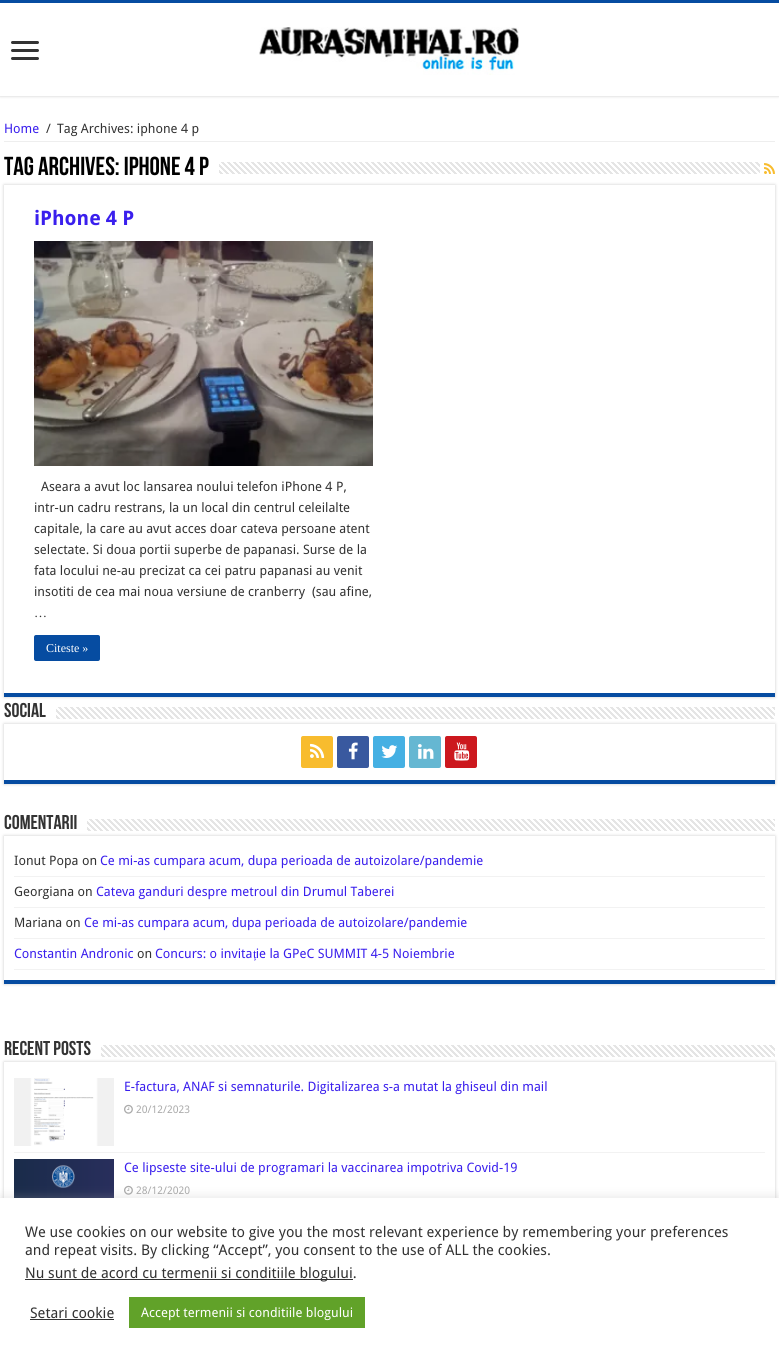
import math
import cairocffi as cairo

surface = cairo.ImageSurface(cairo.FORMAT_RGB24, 779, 1358)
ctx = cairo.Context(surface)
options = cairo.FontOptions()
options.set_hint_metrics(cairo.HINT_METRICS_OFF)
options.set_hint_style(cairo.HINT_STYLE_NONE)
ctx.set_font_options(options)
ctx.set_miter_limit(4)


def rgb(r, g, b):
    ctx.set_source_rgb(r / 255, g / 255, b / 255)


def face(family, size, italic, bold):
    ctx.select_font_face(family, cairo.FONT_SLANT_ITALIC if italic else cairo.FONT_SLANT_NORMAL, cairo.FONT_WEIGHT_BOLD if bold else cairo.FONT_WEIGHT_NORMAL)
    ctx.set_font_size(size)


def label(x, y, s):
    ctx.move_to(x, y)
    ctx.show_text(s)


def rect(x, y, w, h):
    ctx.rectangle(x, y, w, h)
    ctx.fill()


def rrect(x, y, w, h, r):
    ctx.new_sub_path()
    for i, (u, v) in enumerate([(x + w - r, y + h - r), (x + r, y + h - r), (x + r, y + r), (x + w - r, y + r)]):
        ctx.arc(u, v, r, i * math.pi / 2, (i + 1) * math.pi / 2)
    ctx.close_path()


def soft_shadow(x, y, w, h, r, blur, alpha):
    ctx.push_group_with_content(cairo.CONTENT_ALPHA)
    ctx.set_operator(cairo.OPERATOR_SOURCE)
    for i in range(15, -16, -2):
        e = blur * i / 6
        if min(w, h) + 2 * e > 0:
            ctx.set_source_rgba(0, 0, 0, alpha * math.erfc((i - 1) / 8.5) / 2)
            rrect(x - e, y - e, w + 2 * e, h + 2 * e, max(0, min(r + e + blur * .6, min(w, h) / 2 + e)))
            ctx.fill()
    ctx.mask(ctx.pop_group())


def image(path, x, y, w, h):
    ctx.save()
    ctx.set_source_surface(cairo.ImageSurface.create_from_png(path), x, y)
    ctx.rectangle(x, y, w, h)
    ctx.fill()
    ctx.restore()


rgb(255, 255, 255)
ctx.paint()
ctx.save()
ctx.rectangle(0, 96, 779, 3)
ctx.clip()
rgb(202, 202, 202)
soft_shadow(0, 0, 779, 96, 0, 1.5, 1)
ctx.restore()
rgb(6, 76, 161)
rect(0, 0, 779, 3)
rgb(51, 51, 51)
rrect(11, 41, 28, 3, 1.5)
ctx.fill()
rrect(11, 49, 28, 3, 1.5)
ctx.fill()
rrect(11, 57, 28, 3, 1.5)
ctx.fill()
image('image0.png', 259, 27, 260, 48)
rgb(238, 238, 238)
rect(4, 141, 771, 1)
face('Droid Sans', 13, 0, 0)
rgb(58, 31, 237)
label(4, 133, 'Home')
rgb(51, 51, 51)
label(46, 133, '/')
label(57, 133, 'Tag Archives: iphone 4 p')
face('Bebas Neue', 26, 0, 1)
rgb(0, 0, 0)
label(4, 175, 'Tag Archives: iphone 4 p')
image('image1.png', 219, 162, 541, 12)
image('image2.png', 764, 163, 11, 11)
ctx.save()
ctx.set_fill_rule(cairo.FILL_RULE_EVEN_ODD)
ctx.new_path()
ctx.move_to(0, 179)
ctx.line_to(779, 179)
ctx.line_to(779, 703)
ctx.line_to(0, 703)
ctx.close_path()
ctx.move_to(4, 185)
ctx.line_to(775, 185)
ctx.line_to(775, 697)
ctx.line_to(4, 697)
ctx.close_path()
ctx.clip()
rgb(202, 202, 202)
soft_shadow(4, 185, 771, 512, 0, 1.5, 1)
ctx.restore()
rgb(6, 76, 161)
rect(4, 693, 771, 4)
face('Droid Sans', 20, 0, 1)
rgb(58, 31, 237)
label(34, 225, 'iPhone 4 P')
image('image3.png', 34, 241, 339, 225)
face('Droid Sans', 13, 0, 0)
rgb(51, 51, 51)
label(41, 491, 'Aseara a avut loc lansarea noului telefon iPhone 4 P,')
label(34, 512, 'intr-un cadru restrans, la un local din centrul celeilalte')
label(34, 533, 'capitale, la care au avut acces doar cateva persoane atent')
label(34, 554, 'selectate. Si doua portii superbe de papanasi. Surse de la')
label(34, 575, 'fata locului ne-au precizat ca cei patru papanasi au venit')
label(34, 596, 'insotiti de cea mai noua versiune de cranberry  (sau afine,')
face('Liberation Serif', 13, 0, 0)
label(34, 617, '…')
rgb(6, 76, 161)
rrect(34, 635, 66, 26, 2)
ctx.fill()
face('Liberation Serif', 12, 0, 0)
rgb(255, 255, 255)
label(46, 652, 'Citeste »')
face('Bebas Neue', 20, 0, 1)
rgb(51, 51, 51)
label(4, 717, 'Social')
ctx.save()
ctx.set_fill_rule(cairo.FILL_RULE_EVEN_ODD)
ctx.new_path()
ctx.move_to(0, 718)
ctx.line_to(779, 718)
ctx.line_to(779, 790)
ctx.line_to(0, 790)
ctx.close_path()
ctx.move_to(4, 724)
ctx.line_to(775, 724)
ctx.line_to(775, 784)
ctx.line_to(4, 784)
ctx.close_path()
ctx.clip()
rgb(202, 202, 202)
soft_shadow(4, 724, 771, 60, 0, 1.5, 1)
ctx.restore()
image('image4.png', 56, 707, 719, 12)
rgb(6, 76, 161)
rect(4, 780, 771, 4)
rgb(248, 188, 46)
rrect(301, 736, 32, 32, 2)
ctx.fill()
image('image5.png', 310, 743, 15, 15)
rgb(57, 89, 159)
rrect(337, 736, 32, 32, 2)
ctx.fill()
image('image6.png', 348, 742, 10, 18)
rgb(69, 176, 227)
rrect(373, 736, 32, 32, 2)
ctx.fill()
image('image7.png', 381, 745, 17, 13)
rgb(101, 183, 210)
rrect(409, 736, 32, 32, 2)
ctx.fill()
image('image8.png', 418, 744, 16, 15)
rgb(204, 24, 30)
rrect(445, 736, 32, 32, 2)
ctx.fill()
image('image9.png', 454, 742, 16, 19)
rgb(51, 51, 51)
label(4, 829, 'Comentarii')
ctx.save()
ctx.set_fill_rule(cairo.FILL_RULE_EVEN_ODD)
ctx.new_path()
ctx.move_to(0, 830)
ctx.line_to(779, 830)
ctx.line_to(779, 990)
ctx.line_to(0, 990)
ctx.close_path()
ctx.move_to(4, 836)
ctx.line_to(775, 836)
ctx.line_to(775, 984)
ctx.line_to(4, 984)
ctx.close_path()
ctx.clip()
rgb(202, 202, 202)
soft_shadow(4, 836, 771, 148, 0, 1.5, 1)
ctx.restore()
image('image10.png', 87, 819, 688, 12)
rgb(6, 76, 161)
rect(4, 980, 771, 4)
rgb(242, 242, 242)
rect(14, 876, 751, 1)
face('Droid Sans', 13, 0, 0)
rgb(51, 51, 51)
label(14, 865, 'Ionut Popa on')
rgb(58, 31, 237)
label(100, 865, 'Ce mi-as cumpara acum, dupa perioada de autoizolare/pandemie')
rgb(242, 242, 242)
rect(14, 907, 751, 1)
rgb(51, 51, 51)
label(14, 896, 'Georgiana on')
rgb(58, 31, 237)
label(96, 896, 'Cateva ganduri despre metroul din Drumul Taberei')
rgb(242, 242, 242)
rect(14, 938, 751, 1)
rgb(51, 51, 51)
label(14, 927, 'Mariana on')
rgb(58, 31, 237)
label(84, 927, 'Ce mi-as cumpara acum, dupa perioada de autoizolare/pandemie')
rgb(242, 242, 242)
rect(14, 969, 751, 1)
rgb(58, 31, 237)
label(14, 958, 'Constantin Andronic')
rgb(51, 51, 51)
label(137, 958, 'on')
rgb(58, 31, 237)
label(155, 958, 'Concurs: o invita ie la GPeC SUMMIT 4-5 Noiembrie')
face('Liberation Serif', 13, 0, 0)
label(253, 958, 'ț')
face('Bebas Neue', 20, 0, 1)
rgb(51, 51, 51)
label(4, 1055, 'Recent Posts')
ctx.save()
ctx.set_fill_rule(cairo.FILL_RULE_EVEN_ODD)
ctx.new_path()
ctx.move_to(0, 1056)
ctx.line_to(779, 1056)
ctx.line_to(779, 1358)
ctx.line_to(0, 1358)
ctx.close_path()
ctx.move_to(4, 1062)
ctx.line_to(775, 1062)
ctx.line_to(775, 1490)
ctx.line_to(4, 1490)
ctx.close_path()
ctx.clip()
rgb(202, 202, 202)
soft_shadow(4, 1062, 771, 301, 0, 1.5, 1)
ctx.restore()
image('image11.png', 101, 1045, 674, 12)
rgb(242, 242, 242)
rect(14, 1152, 751, 1)
image('image12.png', 14, 1078, 100, 68)
face('Droid Sans', 13, 0, 0)
rgb(58, 31, 237)
label(124, 1091, 'E-factura, ANAF si semnaturile. Digitalizarea s-a mutat la ghiseul din mail')
image('image13.png', 124, 1104, 9, 10)
face('Droid Sans', 10.5, 0, 0)
rgb(170, 170, 170)
label(136, 1113, '20/12/2023')
image('image14.png', 14, 1159, 100, 39)
face('Droid Sans', 13, 0, 0)
rgb(58, 31, 237)
label(124, 1172, 'Ce lipseste site-ului de programari la vaccinarea impotriva Covid-19')
image('image13.png', 124, 1185, 9, 10)
face('Droid Sans', 10.5, 0, 0)
rgb(170, 170, 170)
label(136, 1194, '28/12/2020')
rgb(172, 171, 171)
soft_shadow(0, 1197, 779, 160, 0, 5, 0.3)
rgb(255, 255, 255)
rect(0, 1198, 779, 160)
face('Droid Sans', 14.65, 0, 0)
rgb(51, 51, 51)
label(25, 1237, 'We use cookies on our website to give you the most relevant experience by remembering your preferences')
label(25, 1255, 'and repeat visits. By clicking “Accept”, you consent to the use of ALL the cookies.')
rect(25, 1279, 328, 1)
label(25, 1278, 'Nu sunt de acord cu termenii si conditiile blogului.')
label(30, 1318, 'Setari cookie')
rect(30, 1319, 84, 1)
rgb(97, 162, 41)
rect(129, 1297, 236, 31)
face('Droid Sans', 13, 0, 0)
rgb(255, 255, 255)
label(141, 1317, 'Accept termenii si conditiile blogului')
surface.write_to_png('render.png')
